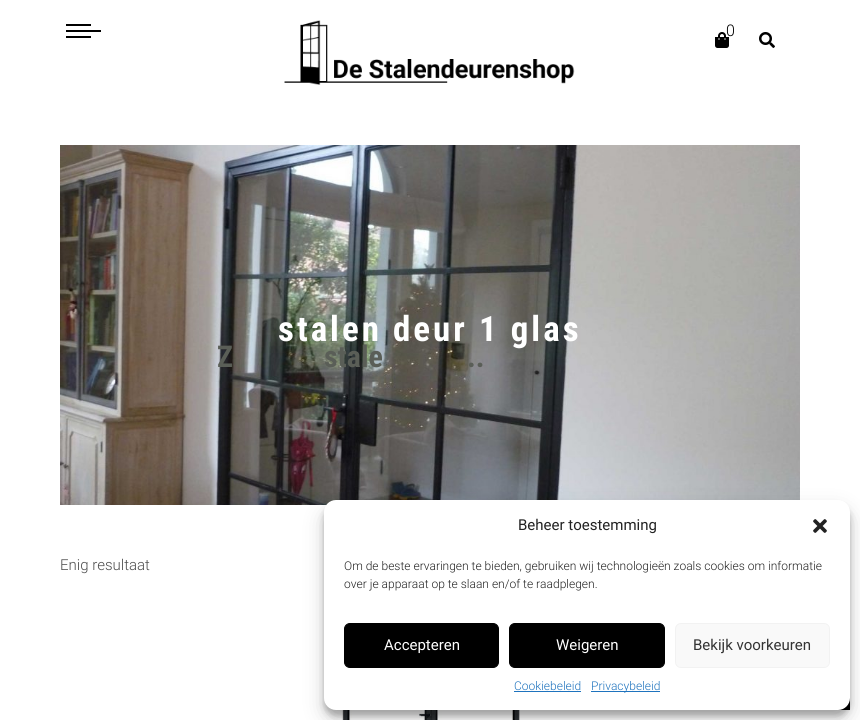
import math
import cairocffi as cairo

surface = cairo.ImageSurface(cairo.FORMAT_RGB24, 860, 720)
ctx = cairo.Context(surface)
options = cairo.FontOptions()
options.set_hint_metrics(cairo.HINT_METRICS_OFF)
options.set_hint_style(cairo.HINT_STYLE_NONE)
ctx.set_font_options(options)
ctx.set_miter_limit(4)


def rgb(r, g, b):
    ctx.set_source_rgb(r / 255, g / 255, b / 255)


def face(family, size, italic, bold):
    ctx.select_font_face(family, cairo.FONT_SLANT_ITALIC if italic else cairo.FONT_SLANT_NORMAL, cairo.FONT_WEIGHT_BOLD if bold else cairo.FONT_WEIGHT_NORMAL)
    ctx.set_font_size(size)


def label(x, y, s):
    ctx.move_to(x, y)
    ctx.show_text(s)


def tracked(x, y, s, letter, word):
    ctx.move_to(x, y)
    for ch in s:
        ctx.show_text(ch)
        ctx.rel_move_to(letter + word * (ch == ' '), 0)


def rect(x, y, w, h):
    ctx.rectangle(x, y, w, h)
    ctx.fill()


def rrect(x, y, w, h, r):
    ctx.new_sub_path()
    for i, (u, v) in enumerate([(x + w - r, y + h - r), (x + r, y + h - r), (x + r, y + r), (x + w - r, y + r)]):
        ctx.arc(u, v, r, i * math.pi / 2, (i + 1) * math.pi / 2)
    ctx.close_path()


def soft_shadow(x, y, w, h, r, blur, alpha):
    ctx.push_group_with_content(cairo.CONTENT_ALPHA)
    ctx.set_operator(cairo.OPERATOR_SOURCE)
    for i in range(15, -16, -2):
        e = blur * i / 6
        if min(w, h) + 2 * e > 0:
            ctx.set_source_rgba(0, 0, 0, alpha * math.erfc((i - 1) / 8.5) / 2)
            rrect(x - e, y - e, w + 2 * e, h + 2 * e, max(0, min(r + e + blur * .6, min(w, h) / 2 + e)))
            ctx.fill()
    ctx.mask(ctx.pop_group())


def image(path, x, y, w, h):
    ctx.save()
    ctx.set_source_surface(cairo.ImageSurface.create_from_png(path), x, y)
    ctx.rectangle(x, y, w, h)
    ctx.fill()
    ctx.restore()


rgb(255, 255, 255)
ctx.paint()
rgb(0, 0, 0)
rect(66, 24, 25, 2)
rect(66, 30, 35, 2)
rect(66, 36, 25, 2)
image('image0.png', 284, 20, 291, 65)
image('image1.png', 715, 32, 14, 16)
face('Roboto Light', 16, 0, 0)
label(726, 36, '0')
image('image2.png', 759, 32, 16, 16)
image('image3.png', 60, 145, 740, 360)
face('Roboto Condensed', 35, 0, 1)
rgb(255, 255, 255)
tracked(278, 341, 'stalen deur 1 glas', 3, 0)
face('Roboto Condensed', 30, 0, 1)
rgb(90, 94, 87)
label(217, 367, 'Z')
label(324, 367, 'stale')
label(467, 367, '..')
face('Roboto Light', 15, 0, 0)
rgb(76, 76, 76)
label(60, 570, 'Enig resultaat')
image('image4.png', 341, 710, 179, 10)
rgb(0, 0, 0)
rect(838, 698, 12, 12)
rgb(0, 0, 0)
soft_shadow(324, 506, 526, 210, 12, 3, 0.23)
soft_shadow(324, 510, 526, 210, 12, 10, 0.19)
rgb(255, 255, 255)
rrect(324, 500, 526, 210, 12)
ctx.fill()
face('Roboto', 15, 0, 0)
rgb(34, 34, 34)
label(518, 530, 'Beheer toestemming')
image('image5.png', 813, 519, 14, 14)
face('Roboto Light', 12, 0, 0)
label(344, 570, 'Om de beste ervaringen te bieden, gebruiken wij technologieën zoals cookies om informatie')
label(344, 588, 'over je apparaat op te slaan en/of te raadplegen.')
rgb(0, 0, 0)
rrect(344.5, 623.5, 154, 44, 5.5)
ctx.fill_preserve()
ctx.set_line_width(1)
ctx.stroke()
face('Roboto', 15, 0, 0)
rgb(255, 255, 255)
label(384, 650, 'Accepteren')
rgb(0, 0, 0)
rrect(509.5, 623.5, 155, 44, 5.5)
ctx.fill_preserve()
ctx.stroke()
rgb(255, 255, 255)
label(556, 650, 'Weigeren')
rgb(249, 249, 249)
rrect(675.5, 623.5, 154, 44, 5.5)
ctx.fill_preserve()
rgb(242, 242, 242)
ctx.stroke()
rgb(51, 51, 51)
label(693, 650, 'Bekijk voorkeuren')
face('Roboto Light', 12, 0, 0)
rgb(30, 115, 190)
label(514, 690, 'Cookiebeleid')
rect(514, 691, 67, 1)
rect(591, 691, 69, 1)
label(591, 690, 'Privacybeleid')
surface.write_to_png('render.png')
